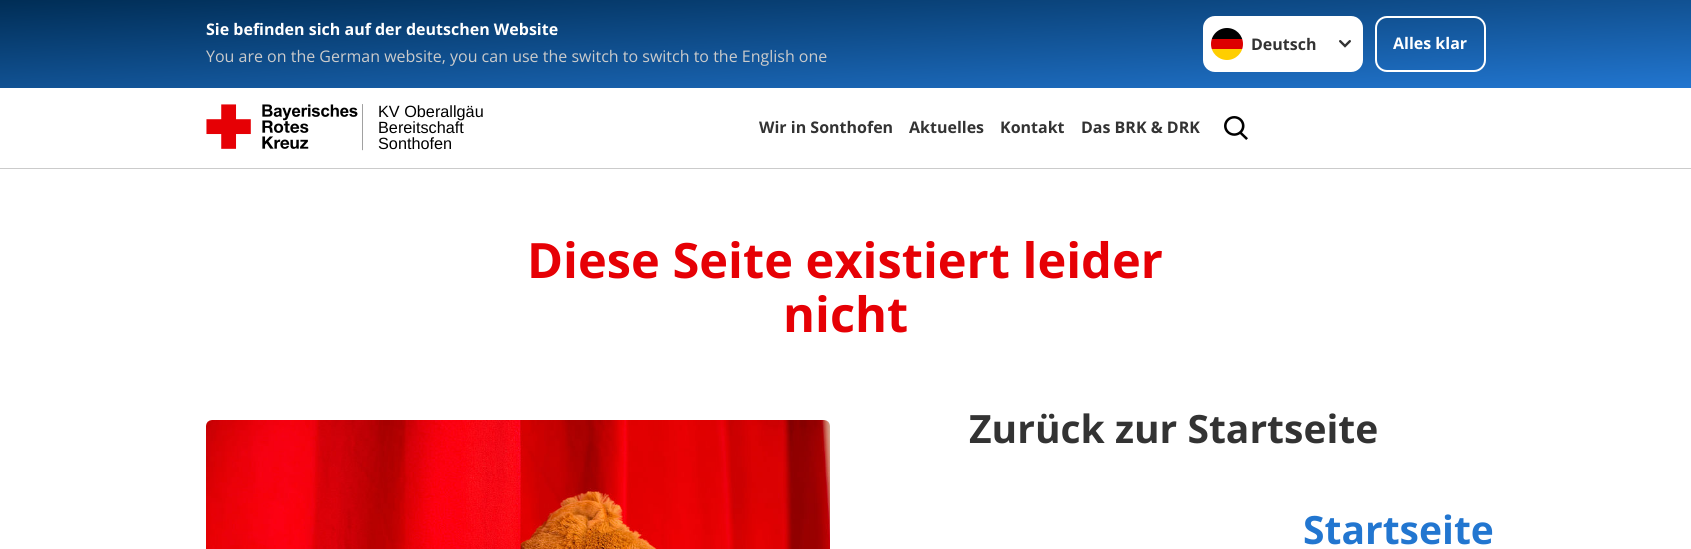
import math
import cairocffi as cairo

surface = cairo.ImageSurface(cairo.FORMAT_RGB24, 1691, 549)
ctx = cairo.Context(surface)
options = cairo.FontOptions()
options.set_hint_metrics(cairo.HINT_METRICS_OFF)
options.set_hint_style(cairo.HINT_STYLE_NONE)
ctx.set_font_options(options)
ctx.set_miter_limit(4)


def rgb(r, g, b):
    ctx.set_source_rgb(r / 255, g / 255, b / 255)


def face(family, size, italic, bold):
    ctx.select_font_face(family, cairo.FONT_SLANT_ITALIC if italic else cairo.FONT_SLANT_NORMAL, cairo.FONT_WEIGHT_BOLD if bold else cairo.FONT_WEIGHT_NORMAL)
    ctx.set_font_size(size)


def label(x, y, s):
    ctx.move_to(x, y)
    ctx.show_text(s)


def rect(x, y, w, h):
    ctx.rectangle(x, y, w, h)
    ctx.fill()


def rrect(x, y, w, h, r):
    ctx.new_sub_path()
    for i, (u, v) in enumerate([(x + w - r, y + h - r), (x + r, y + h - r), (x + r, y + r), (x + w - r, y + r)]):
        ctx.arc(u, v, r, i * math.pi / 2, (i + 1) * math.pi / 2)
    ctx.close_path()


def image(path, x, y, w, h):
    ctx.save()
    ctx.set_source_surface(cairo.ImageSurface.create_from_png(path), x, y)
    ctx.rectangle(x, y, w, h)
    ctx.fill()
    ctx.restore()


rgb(255, 255, 255)
ctx.paint()
gradient = cairo.LinearGradient(841, -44, 850, 132)
gradient.add_color_stop_rgba(0, 0, 0.176, 0.333, 1)
gradient.add_color_stop_rgba(1, 0.133, 0.463, 0.816, 1)
ctx.set_source(gradient)
rect(0, 0, 1691, 88)
face('Open Sans', 16, 0, 1)
rgb(255, 255, 255)
label(206, 35, 'Sie befinden sich auf der deutschen Website')
face('Open Sans', 16, 0, 0)
rgb(203, 203, 203)
label(206, 62, 'You are on the German website, you can use the switch to switch to the English one')
rgb(255, 255, 255)
rrect(1203, 16, 160, 56, 12)
ctx.fill()
ctx.save()
rrect(1211, 28, 32, 32, 16)
ctx.clip()
rgb(255, 206, 0)
rect(1211, 49, 32, 11)
rgb(0, 0, 0)
rect(1211, 28, 32, 11)
rgb(221, 0, 0)
rect(1211, 39, 32, 10)
ctx.restore()
image('image0.png', 1339, 40, 12, 8)
face('Open Sans', 16, 0, 1)
rgb(51, 51, 51)
label(1251, 50, 'Deutsch')
rrect(1376, 17, 109, 54, 11)
rgb(255, 255, 255)
ctx.stroke()
label(1393, 49, 'Alles klar')
rgb(203, 203, 203)
rect(0, 168, 1691, 1)
image('image1.png', 206, 104, 157, 47)
face('Liberation Sans', 16.25, 0, 0)
rgb(0, 0, 0)
label(378, 117, 'KV Oberallgäu')
label(378, 133, 'Bereitschaft')
label(378, 149, 'Sonthofen')
face('Open Sans', 16, 0, 1)
rgb(51, 51, 51)
label(759, 133, 'Wir in Sonthofen')
label(909, 133, 'Aktuelles')
label(1000, 133, 'Kontakt')
label(1081, 133, 'Das BRK & DRK')
image('image2.png', 1224, 116, 24, 24)
face('Open Sans', 48.75, 0, 1)
rgb(230, 0, 5)
label(527, 278, 'Diese Seite existiert leider')
label(783, 332, 'nicht')
image('image3.png', 206, 420, 624, 129)
face('Open Sans', 39, 0, 1)
rgb(51, 51, 51)
label(969, 443, 'Zurück zur Startseite')
rgb(34, 118, 208)
label(1303, 544, 'Startseite')
surface.write_to_png('render.png')
